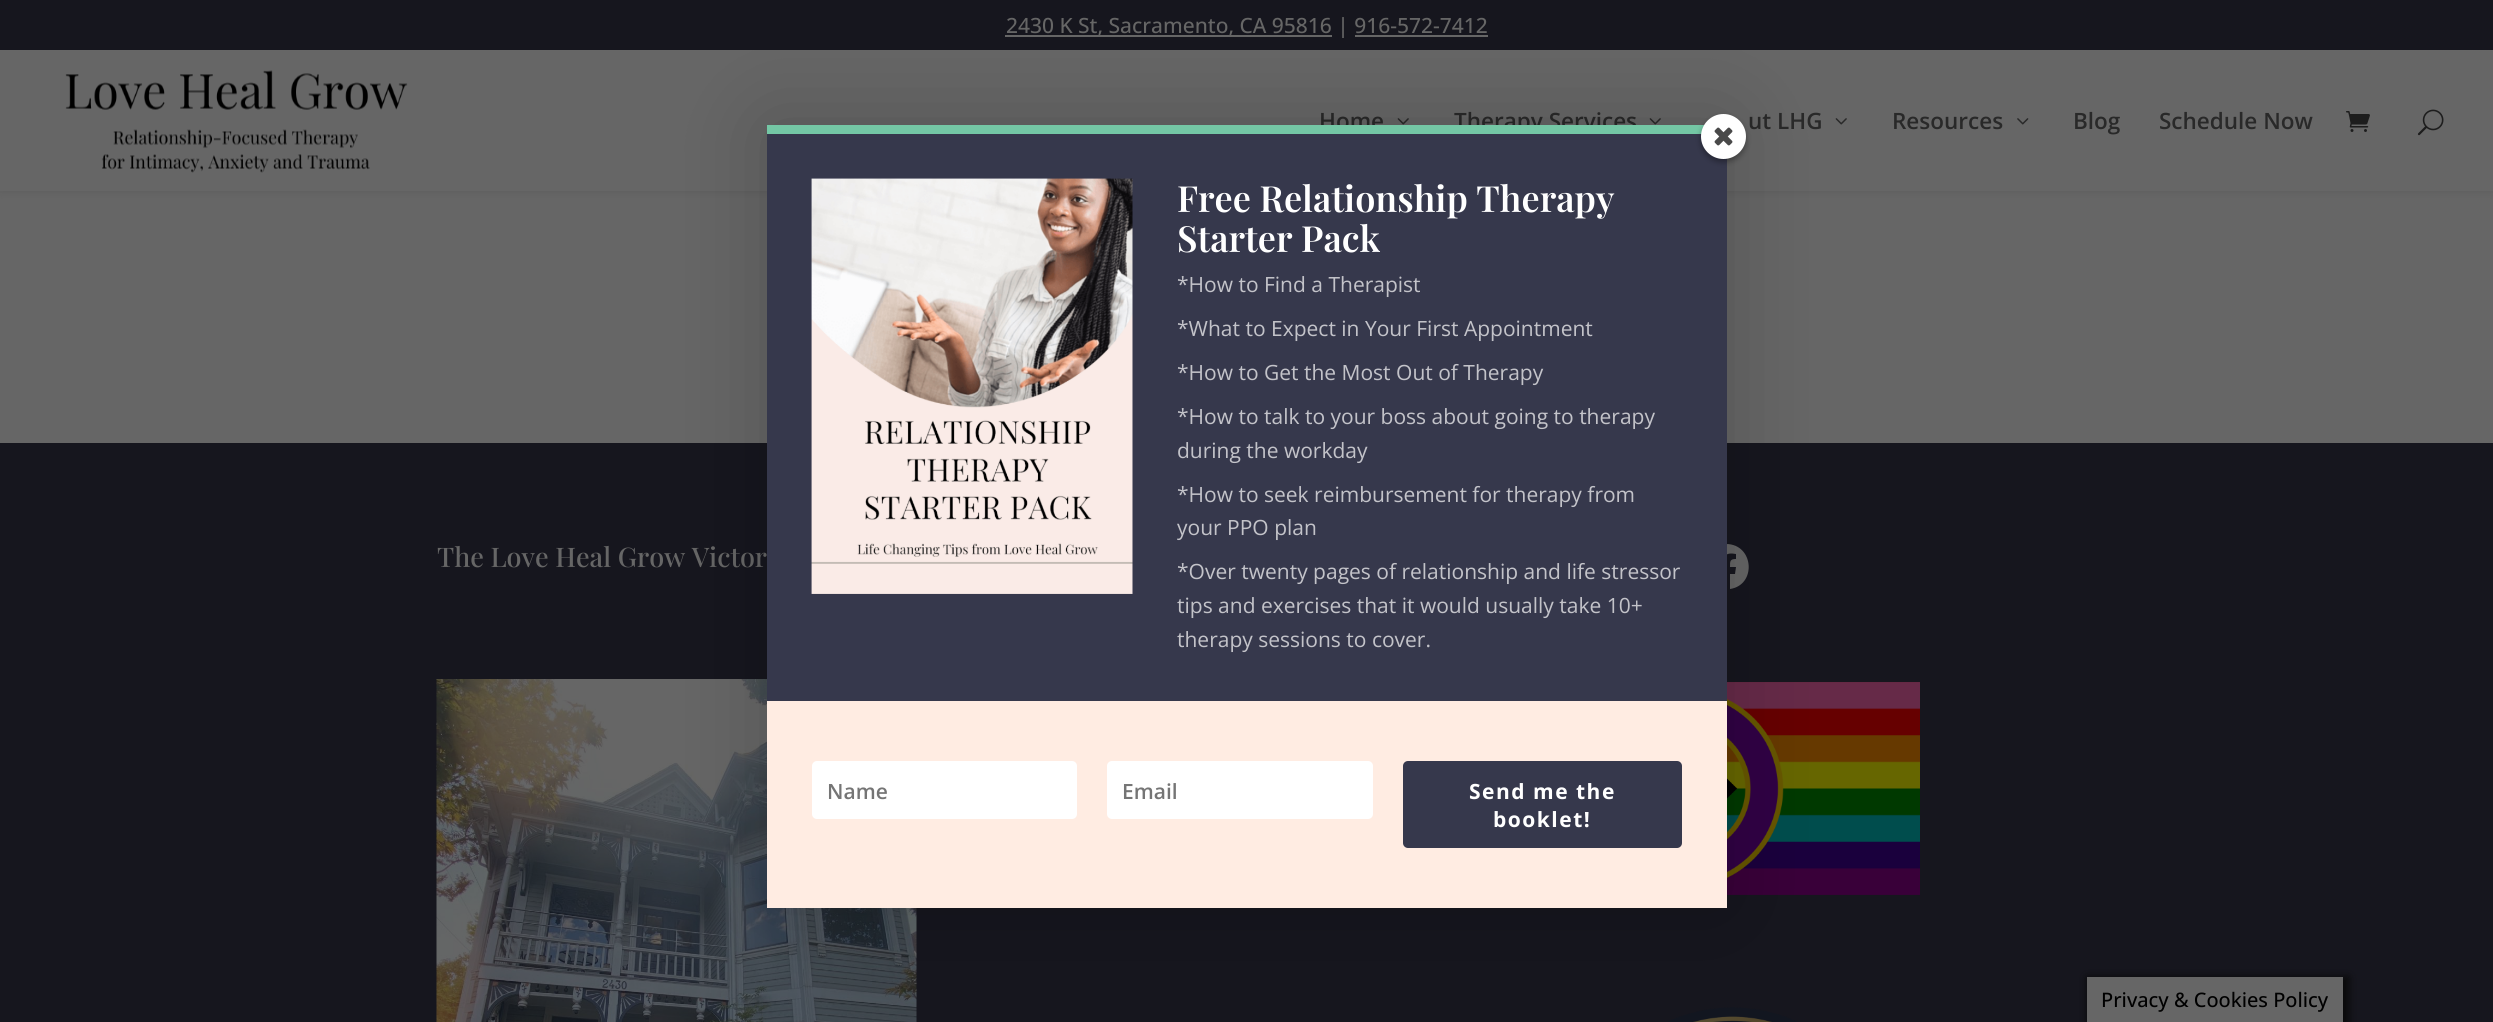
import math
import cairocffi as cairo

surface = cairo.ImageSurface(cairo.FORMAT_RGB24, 2493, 1022)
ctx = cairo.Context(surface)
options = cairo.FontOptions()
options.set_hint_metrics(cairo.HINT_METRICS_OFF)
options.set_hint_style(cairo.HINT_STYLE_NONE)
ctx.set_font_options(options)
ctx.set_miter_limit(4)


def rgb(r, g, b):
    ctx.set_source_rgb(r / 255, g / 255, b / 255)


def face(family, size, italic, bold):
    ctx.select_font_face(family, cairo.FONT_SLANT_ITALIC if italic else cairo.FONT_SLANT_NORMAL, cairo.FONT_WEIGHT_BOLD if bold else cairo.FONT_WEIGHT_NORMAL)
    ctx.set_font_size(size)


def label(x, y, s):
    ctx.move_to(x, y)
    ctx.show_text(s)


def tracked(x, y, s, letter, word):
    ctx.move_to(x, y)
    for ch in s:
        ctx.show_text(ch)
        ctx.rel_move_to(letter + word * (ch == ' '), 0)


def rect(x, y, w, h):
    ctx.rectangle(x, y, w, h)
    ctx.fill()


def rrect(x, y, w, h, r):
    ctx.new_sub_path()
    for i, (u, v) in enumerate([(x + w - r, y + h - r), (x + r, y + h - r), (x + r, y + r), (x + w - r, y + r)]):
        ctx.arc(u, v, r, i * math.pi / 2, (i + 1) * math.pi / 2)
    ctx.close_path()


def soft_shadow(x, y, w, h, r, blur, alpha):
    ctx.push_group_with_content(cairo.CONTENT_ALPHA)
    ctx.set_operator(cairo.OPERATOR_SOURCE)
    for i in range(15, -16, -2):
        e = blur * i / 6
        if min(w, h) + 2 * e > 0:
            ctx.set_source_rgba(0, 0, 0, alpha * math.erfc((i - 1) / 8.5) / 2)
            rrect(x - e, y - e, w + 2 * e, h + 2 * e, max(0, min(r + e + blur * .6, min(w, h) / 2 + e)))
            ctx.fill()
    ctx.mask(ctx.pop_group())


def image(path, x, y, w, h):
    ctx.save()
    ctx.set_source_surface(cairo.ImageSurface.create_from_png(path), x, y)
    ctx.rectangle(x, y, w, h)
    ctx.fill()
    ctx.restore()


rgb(102, 102, 102)
ctx.paint()
rgb(0, 0, 0)
soft_shadow(0, 0, 2493, 191, 0, 5, 0.1)
rgb(102, 102, 102)
rect(0, 50, 2493, 141)
rgb(22, 22, 30)
rect(0, 0, 2493, 50)
rgb(102, 102, 102)
rect(1005, 35, 327, 2)
face('Open Sans Medium', 21, 0, 0)
label(1006, 33, '2430 K St, Sacramento, CA 95816 | 916-572-7412')
rect(1355, 35, 133, 2)
image('image0.png', 65, 70, 343, 103)
face('Open Sans SemiBold', 22.5, 0, 0)
rgb(41, 41, 41)
label(1319, 129, 'Home')
image('image1.png', 1397, 118, 12, 7)
label(1454, 129, 'Therapy Services')
image('image1.png', 1649, 118, 12, 7)
label(1748, 129, 'ut LHG')
image('image1.png', 1835, 118, 12, 7)
label(1892, 129, 'Resources')
image('image2.png', 2017, 118, 12, 7)
label(2073, 129, 'Blog')
label(2159, 129, 'Schedule Now')
image('image3.png', 2346, 111, 24, 21)
image('image4.png', 2417, 109, 27, 27)
rgb(22, 22, 30)
rect(0, 443, 2493, 579)
face('Playfair Display Medium', 27, 0, 0)
rgb(102, 102, 102)
label(437, 567, 'The Love Heal Grow Victor')
image('image5.png', 436, 679, 481, 343)
ctx.new_path()
ctx.move_to(1726, 544)
ctx.curve_to(1699, 544, 1696, 585, 1723, 589)
ctx.line_to(1723, 574)
ctx.line_to(1717, 574)
ctx.line_to(1717, 567)
ctx.line_to(1723, 567)
ctx.curve_to(1723, 556, 1725, 552, 1736, 554)
ctx.line_to(1736, 559)
ctx.curve_to(1730, 559, 1730, 561, 1730, 567)
ctx.line_to(1736, 567)
ctx.line_to(1735, 574)
ctx.line_to(1730, 574)
ctx.line_to(1730, 589)
ctx.curve_to(1757, 585, 1754, 544, 1726, 544)
ctx.close_path()
ctx.fill()
image('image6.png', 1727, 682, 193, 213)
image('image7.png', 1668, 1007, 129, 15)
rgb(0, 0, 0)
soft_shadow(767, 125, 960, 783, 0, 45, 0.2)
rgb(116, 199, 165)
rect(767, 125, 938, 9)
rgb(54, 56, 76)
rect(767, 134, 960, 567)
rgb(0, 0, 0)
soft_shadow(1701, 117, 45, 45, 22.5, 3, 0.34)
rgb(255, 255, 255)
ctx.arc(1723.5, 136.5, 22.5, 0, 2 * math.pi)
ctx.fill()
image('image8.png', 1714, 127, 19, 19)
image('image9.png', 811, 178, 322, 416)
face('Playfair Display SemiBold', 36, 0, 0)
label(1177, 212, 'Free Relationship Therapy')
label(1177, 252, 'Starter Pack')
face('Open Sans', 21, 0, 0)
rgb(195, 195, 201)
label(1177, 292, '*How to Find a Therapist')
label(1177, 336, '*What to Expect in Your First Appointment')
label(1177, 380, '*How to Get the Most Out of Therapy')
label(1177, 424, '*How to talk to your boss about going to therapy')
label(1177, 458, 'during the workday')
label(1177, 502, '*How to seek reimbursement for therapy from')
label(1177, 535, 'your PPO plan')
label(1177, 579, '*Over twenty pages of relationship and life stressor')
label(1177, 613, 'tips and exercises that it would usually take 10+')
label(1177, 647, 'therapy sessions to cover.')
rgb(255, 236, 226)
rect(767, 701, 960, 207)
rgb(255, 255, 255)
rrect(812, 761, 265, 58, 5)
ctx.fill()
face('Open Sans SemiBold', 21, 0, 0)
rgb(117, 117, 117)
label(827, 799, 'Name')
rgb(255, 255, 255)
rrect(1107, 761, 266, 58, 5)
ctx.fill()
rgb(117, 117, 117)
label(1122, 799, 'Email')
rgb(54, 56, 76)
rrect(1403, 761, 279, 87, 5)
ctx.fill()
face('Open Sans', 21, 0, 1)
rgb(255, 255, 255)
tracked(1469, 799, 'Send me the', 1.5, 0)
tracked(1493, 827, 'booklet!', 1.5, 0)
rgb(9, 9, 9)
soft_shadow(2087, 977, 262, 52, 0, 4, 1)
rgb(102, 102, 102)
rect(2087, 977, 256, 45)
face('Open Sans Medium', 20, 0, 0)
rgb(0, 0, 0)
label(2101, 1007, 'Privacy & Cookies Policy')
surface.write_to_png('render.png')
